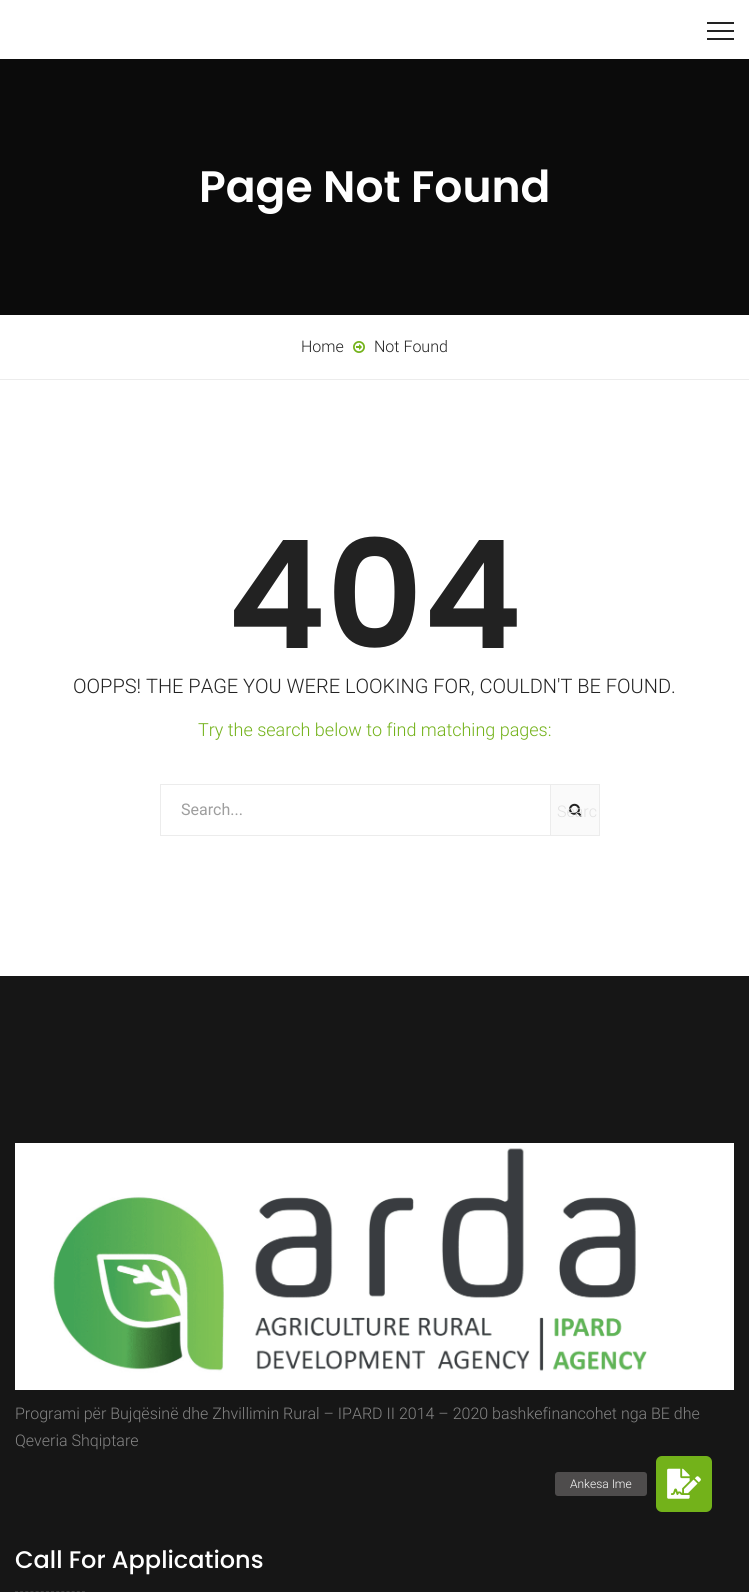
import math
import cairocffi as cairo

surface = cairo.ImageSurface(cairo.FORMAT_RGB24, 749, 1592)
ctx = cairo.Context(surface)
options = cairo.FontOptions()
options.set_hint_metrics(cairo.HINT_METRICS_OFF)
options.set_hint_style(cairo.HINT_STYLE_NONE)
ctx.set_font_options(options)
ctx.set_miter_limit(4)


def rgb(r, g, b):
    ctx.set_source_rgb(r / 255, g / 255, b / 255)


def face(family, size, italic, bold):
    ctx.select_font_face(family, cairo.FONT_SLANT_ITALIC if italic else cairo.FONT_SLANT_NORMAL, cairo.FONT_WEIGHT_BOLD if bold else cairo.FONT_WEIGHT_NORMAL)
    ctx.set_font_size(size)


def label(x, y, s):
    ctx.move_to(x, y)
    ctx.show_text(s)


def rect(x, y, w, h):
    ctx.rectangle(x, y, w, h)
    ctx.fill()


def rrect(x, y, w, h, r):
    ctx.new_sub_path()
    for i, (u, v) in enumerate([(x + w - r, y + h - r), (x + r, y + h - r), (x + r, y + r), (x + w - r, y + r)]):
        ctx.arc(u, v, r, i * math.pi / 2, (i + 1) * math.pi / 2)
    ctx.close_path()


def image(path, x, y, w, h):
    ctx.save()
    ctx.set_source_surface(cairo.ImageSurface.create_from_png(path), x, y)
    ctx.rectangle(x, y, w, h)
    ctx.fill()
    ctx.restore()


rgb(255, 255, 255)
ctx.paint()
rgb(34, 34, 34)
rect(707, 30, 27, 2)
rect(707, 22, 27, 2)
rect(707, 38, 27, 2)
rgb(11, 11, 11)
rect(0, 59, 749, 256)
face('Poppins SemiBold', 44, 0, 0)
rgb(255, 255, 255)
label(199, 202, 'Page Not Found')
rgb(236, 236, 236)
rect(0, 379, 749, 1)
face('Roboto Light', 16, 0, 0)
rgb(34, 34, 34)
label(301, 352, 'Home')
image('image0.png', 353, 341, 12, 12)
label(374, 352, 'Not Found')
face('Poppins SemiBold', 150, 0, 0)
label(227, 648, '404')
face('Roboto Light', 20, 0, 0)
label(73, 693, 'OOPPS! THE PAGE YOU WERE LOOKING FOR, COULDN\'T BE FOUND.')
face('Roboto Light', 18, 0, 0)
rgb(115, 178, 26)
label(198, 736, 'Try the search below to find matching pages:')
ctx.rectangle(160.5, 784.5, 429, 51)
rgb(236, 236, 236)
ctx.set_line_width(1)
ctx.stroke()
face('Roboto', 16, 0, 0)
rgb(158, 158, 158)
label(181, 815, 'Search...')
rgb(250, 250, 250)
ctx.rectangle(550.5, 784.5, 49, 51)
ctx.fill_preserve()
rgb(236, 236, 236)
ctx.stroke()
image('image1.png', 569, 803, 13, 14)
face('Roboto Light', 16, 0, 0)
rgb(225, 225, 225)
label(557, 817, 'Searc')
rgb(22, 22, 22)
rect(0, 976, 749, 616)
image('image2.png', 15, 1143, 719, 247)
rgb(132, 132, 132)
label(15, 1419, 'Programi për Bujqësinë dhe Zhvillimin Rural – IPARD II 2014 – 2020 bashkefinancohet nga BE dhe')
label(15, 1446, 'Qeveria Shqiptare')
face('Poppins Medium', 24, 0, 0)
rgb(255, 255, 255)
label(15, 1568, 'Call For Applications')
ctx.new_path()
ctx.move_to(15, 1591.5)
ctx.line_to(85, 1591.5)
rgb(57, 57, 57)
ctx.set_dash([3, 2.15])
ctx.stroke()
rgb(115, 178, 26)
rrect(656, 1456, 56, 56, 6)
ctx.fill()
rgb(78, 76, 76)
rrect(555, 1472, 92, 24, 3)
ctx.fill()
face('Roboto Light', 12, 0, 0)
rgb(255, 255, 255)
label(570, 1488, 'Ankesa Ime')
image('image3.png', 667, 1468, 34, 31)
surface.write_to_png('render.png')
